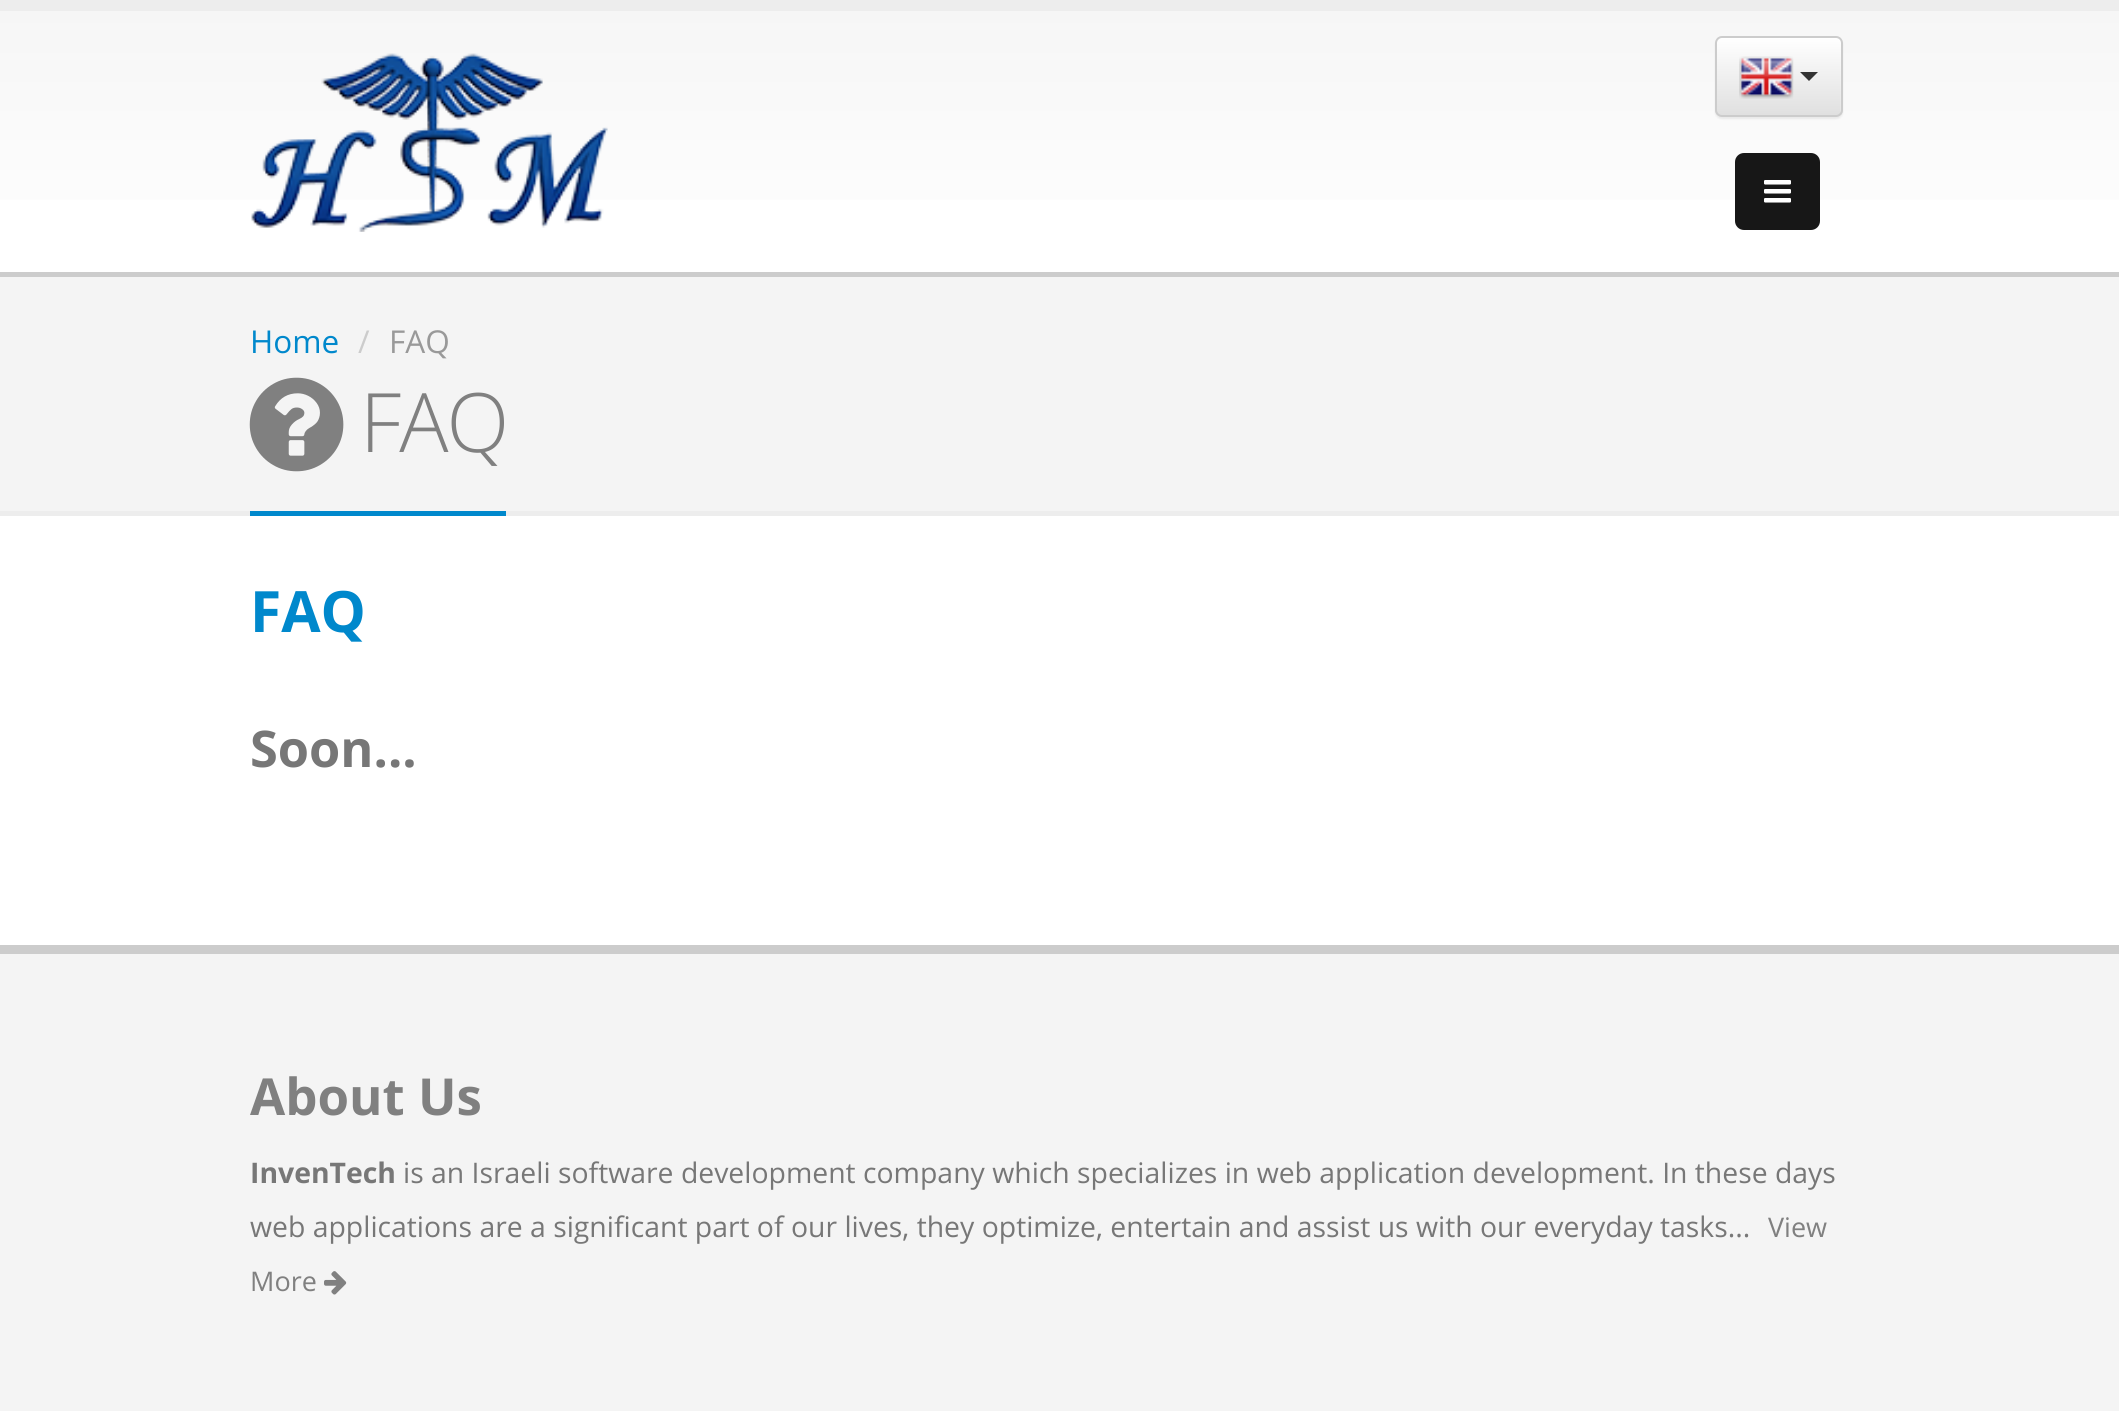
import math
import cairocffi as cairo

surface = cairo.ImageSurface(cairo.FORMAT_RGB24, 2119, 1411)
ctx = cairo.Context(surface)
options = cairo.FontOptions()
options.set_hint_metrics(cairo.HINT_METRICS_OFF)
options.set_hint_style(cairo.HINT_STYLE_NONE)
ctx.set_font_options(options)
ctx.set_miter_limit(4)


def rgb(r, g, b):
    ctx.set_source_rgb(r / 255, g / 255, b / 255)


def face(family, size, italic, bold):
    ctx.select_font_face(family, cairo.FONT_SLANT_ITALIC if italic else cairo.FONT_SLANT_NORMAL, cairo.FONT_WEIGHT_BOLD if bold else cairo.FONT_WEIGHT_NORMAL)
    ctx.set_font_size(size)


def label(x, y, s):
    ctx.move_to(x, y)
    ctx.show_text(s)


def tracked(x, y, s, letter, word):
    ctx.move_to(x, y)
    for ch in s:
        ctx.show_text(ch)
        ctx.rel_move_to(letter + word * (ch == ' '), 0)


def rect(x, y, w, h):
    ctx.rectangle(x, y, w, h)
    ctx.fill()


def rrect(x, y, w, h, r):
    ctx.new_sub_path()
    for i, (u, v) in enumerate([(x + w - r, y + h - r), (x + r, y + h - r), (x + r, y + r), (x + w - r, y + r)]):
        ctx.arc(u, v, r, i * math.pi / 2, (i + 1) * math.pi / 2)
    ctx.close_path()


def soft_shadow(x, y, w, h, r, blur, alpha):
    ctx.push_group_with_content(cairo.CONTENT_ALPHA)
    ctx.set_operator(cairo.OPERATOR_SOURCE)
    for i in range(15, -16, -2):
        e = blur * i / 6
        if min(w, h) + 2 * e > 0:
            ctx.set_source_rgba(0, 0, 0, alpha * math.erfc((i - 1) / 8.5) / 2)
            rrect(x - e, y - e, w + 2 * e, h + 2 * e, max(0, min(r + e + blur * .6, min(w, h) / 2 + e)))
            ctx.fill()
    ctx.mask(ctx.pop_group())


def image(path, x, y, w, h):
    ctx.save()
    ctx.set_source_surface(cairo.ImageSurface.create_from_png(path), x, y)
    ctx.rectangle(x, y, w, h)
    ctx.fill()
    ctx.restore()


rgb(255, 255, 255)
ctx.paint()
gradient = cairo.LinearGradient(1060, 11, 1060, 272)
gradient.add_color_stop_rgba(0, 0.965, 0.965, 0.965, 1)
gradient.add_color_stop_rgba(1, 1, 1, 1, 1)
ctx.set_source(gradient)
rect(0, 11, 2119, 189)
rgb(237, 237, 237)
rect(0, 0, 2119, 11)
image('image0.png', 251, 53, 357, 179)
rgb(0, 0, 0)
soft_shadow(1715, 38, 128, 81, 7, 1, 0.07)
ctx.save()
rrect(1715, 36, 128, 81, 7)
ctx.clip()
gradient = cairo.LinearGradient(1779, 38, 1779, 115)
gradient.add_color_stop_rgba(0, 1, 1, 1, 1)
gradient.add_color_stop_rgba(1, 0.878, 0.878, 0.878, 1)
ctx.set_source(gradient)
rect(1715, 38, 128, 77)
ctx.restore()
ctx.set_source_rgba(1, 1, 1, 0.15)
ctx.new_path()
ctx.move_to(1721, 40)
ctx.line_to(1837, 40)
ctx.curve_to(1842, 42, 1840, 54, 1840, 56)
ctx.line_to(1840, 113)
ctx.curve_to(1841, 112, 1841, 111, 1841, 110)
ctx.line_to(1841, 43)
ctx.curve_to(1841, 40, 1839, 38, 1836, 38)
ctx.line_to(1722, 38)
ctx.curve_to(1719, 38, 1717, 40, 1717, 43)
ctx.line_to(1717, 45)
ctx.curve_to(1717, 43, 1719, 40, 1721, 40)
ctx.close_path()
ctx.fill()
rrect(1716, 37, 126, 79, 6)
rgb(204, 204, 204)
ctx.stroke()
image('image1.png', 1739, 56, 55, 43)
rgb(51, 51, 51)
ctx.new_path()
ctx.move_to(1800, 72)
ctx.line_to(1818, 72)
ctx.line_to(1809, 81)
ctx.close_path()
ctx.fill()
rgb(23, 23, 23)
rrect(1735, 153, 85, 77, 9)
ctx.fill()
image('image2.png', 1764, 180, 27, 23)
rgb(244, 244, 244)
rect(0, 277, 2119, 234)
rgb(204, 204, 204)
rect(0, 272, 2119, 5)
rgb(237, 237, 237)
rect(0, 511, 2119, 5)
face('Open Sans', 31.5, 0, 0)
rgb(0, 136, 204)
label(250, 353, 'Home')
rgb(204, 204, 204)
label(358, 353, '/')
rgb(153, 153, 153)
label(389, 353, 'FAQ')
rgb(0, 136, 204)
rect(250, 511, 256, 5)
image('image3.png', 249, 377, 95, 95)
face('Open Sans Light', 82, 0, 0)
rgb(128, 128, 128)
tracked(360, 452, 'FAQ', -2, 0)
face('Open Sans', 57, 0, 1)
rgb(0, 136, 204)
label(250, 632, 'FAQ')
face('Open Sans', 50.5, 0, 1)
rgb(119, 119, 119)
label(250, 767, 'Soon...')
rgb(244, 244, 244)
rect(0, 954, 2119, 457)
rgb(204, 204, 204)
rect(0, 945, 2119, 9)
face('Open Sans', 51, 0, 1)
rgb(128, 128, 128)
label(250, 1115, 'About Us')
face('Open Sans', 28.35, 0, 1)
rgb(119, 119, 119)
label(250, 1183, 'InvenTech')
face('Open Sans', 28.35, 0, 0)
label(403, 1183, 'is an Israeli software development company which specializes in web application development. In these days')
label(250, 1237, 'web applications are a significant part of our lives, they optimize, entertain and assist us with our everyday tasks...')
face('Open Sans', 27, 0, 0)
rgb(128, 128, 128)
label(1768, 1237, 'View')
label(250, 1291, 'More')
image('image4.png', 324, 1271, 23, 24)
surface.write_to_png('render.png')
